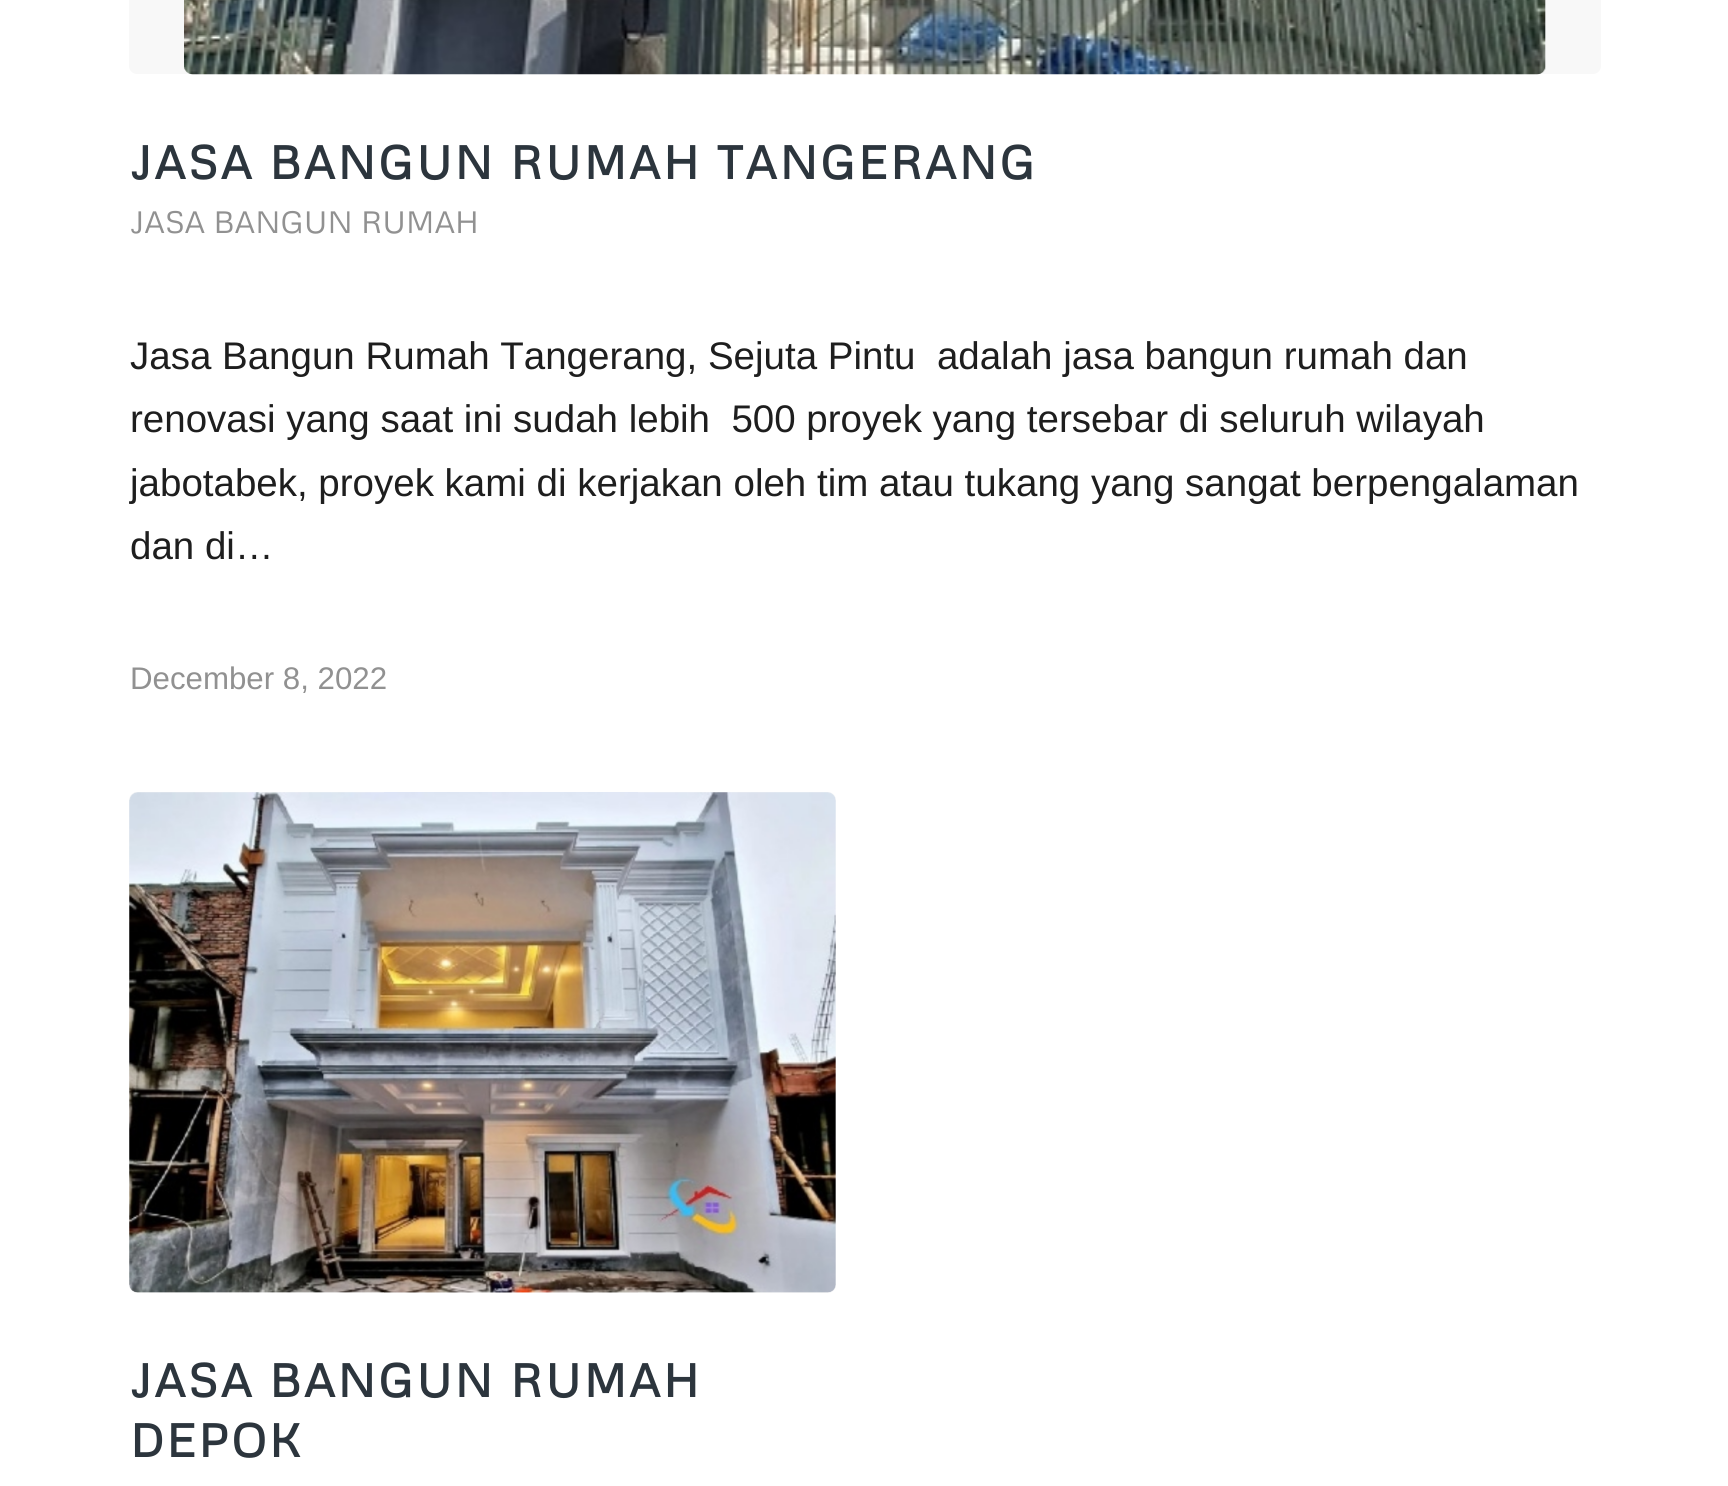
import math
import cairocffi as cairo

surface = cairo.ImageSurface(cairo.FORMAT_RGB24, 1728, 1486)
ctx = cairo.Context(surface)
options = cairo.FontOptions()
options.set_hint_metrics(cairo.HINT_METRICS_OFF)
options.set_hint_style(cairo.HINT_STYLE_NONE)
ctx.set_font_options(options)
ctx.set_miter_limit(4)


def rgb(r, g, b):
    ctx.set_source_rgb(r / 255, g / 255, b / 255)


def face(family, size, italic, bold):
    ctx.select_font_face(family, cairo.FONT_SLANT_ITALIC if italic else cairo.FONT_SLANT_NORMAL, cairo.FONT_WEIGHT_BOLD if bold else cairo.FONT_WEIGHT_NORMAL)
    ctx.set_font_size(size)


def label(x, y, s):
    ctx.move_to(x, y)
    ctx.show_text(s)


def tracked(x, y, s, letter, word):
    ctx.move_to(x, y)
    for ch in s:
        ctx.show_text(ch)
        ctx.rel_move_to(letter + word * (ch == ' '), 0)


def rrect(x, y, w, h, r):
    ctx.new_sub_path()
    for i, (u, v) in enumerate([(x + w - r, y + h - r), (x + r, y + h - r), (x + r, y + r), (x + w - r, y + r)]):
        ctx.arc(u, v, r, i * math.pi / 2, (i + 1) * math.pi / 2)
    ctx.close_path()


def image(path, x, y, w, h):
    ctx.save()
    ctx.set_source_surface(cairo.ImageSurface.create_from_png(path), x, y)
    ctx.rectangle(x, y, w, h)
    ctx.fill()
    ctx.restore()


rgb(255, 255, 255)
ctx.paint()
rgb(248, 248, 248)
rrect(129, -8, 1472, 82, 8)
ctx.fill()
image('image0.png', 184, 0, 1362, 75)
face('Metrophobic', 46.25, 0, 1)
rgb(44, 53, 61)
tracked(130, 179, 'JASA BANGUN RUMAH TANGERANG', 2.75, 0)
face('Metrophobic', 30.75, 0, 0)
rgb(145, 145, 145)
label(130, 233, 'JASA BANGUN RUMAH')
face('Liberation Sans', 38.5, 0, 0)
rgb(30, 30, 30)
label(130, 369, 'Jasa Bangun Rumah Tangerang, Sejuta Pintu  adalah jasa bangun rumah dan')
label(130, 432, 'renovasi yang saat ini sudah lebih  500 proyek yang tersebar di seluruh wilayah')
ctx.save()
ctx.rectangle(129, 325, 1472, 253)
ctx.clip()
label(130, 496, 'jabotabek, proyek kami di kerjakan oleh tim atau tukang yang sangat berpengalaman')
ctx.restore()
label(130, 559, 'dan di…')
face('Liberation Sans', 31.25, 0, 0)
rgb(145, 145, 145)
label(130, 689, 'December 8, 2022')
rgb(248, 248, 248)
rrect(129, 792, 707, 501, 8)
ctx.fill()
image('image1.png', 129, 792, 707, 501)
face('Metrophobic', 46.25, 0, 1)
rgb(44, 53, 61)
tracked(130, 1397, 'JASA BANGUN RUMAH', 2.75, 0)
tracked(130, 1457, 'DEPOK', 2.75, 0)
surface.write_to_png('render.png')
